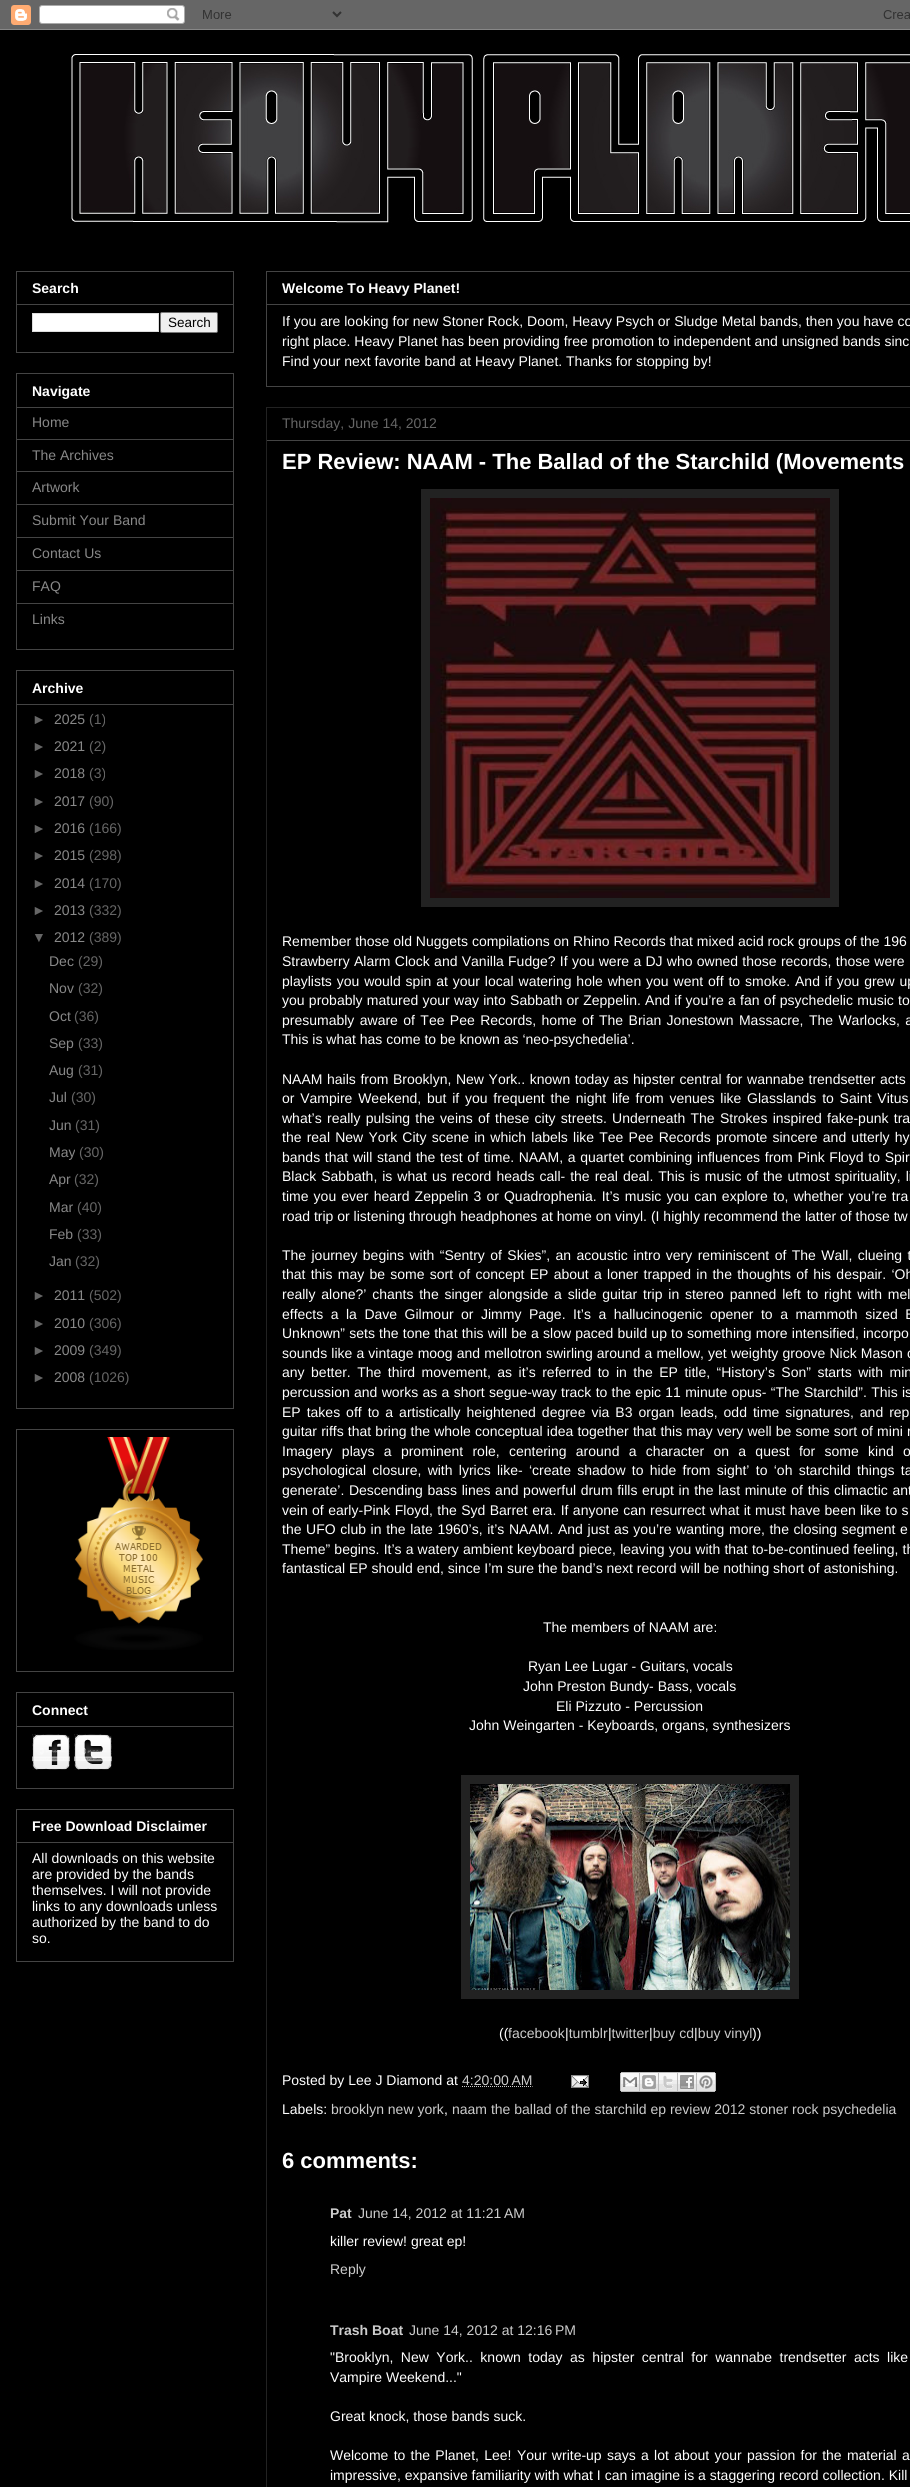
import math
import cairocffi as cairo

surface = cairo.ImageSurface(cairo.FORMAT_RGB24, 910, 2487)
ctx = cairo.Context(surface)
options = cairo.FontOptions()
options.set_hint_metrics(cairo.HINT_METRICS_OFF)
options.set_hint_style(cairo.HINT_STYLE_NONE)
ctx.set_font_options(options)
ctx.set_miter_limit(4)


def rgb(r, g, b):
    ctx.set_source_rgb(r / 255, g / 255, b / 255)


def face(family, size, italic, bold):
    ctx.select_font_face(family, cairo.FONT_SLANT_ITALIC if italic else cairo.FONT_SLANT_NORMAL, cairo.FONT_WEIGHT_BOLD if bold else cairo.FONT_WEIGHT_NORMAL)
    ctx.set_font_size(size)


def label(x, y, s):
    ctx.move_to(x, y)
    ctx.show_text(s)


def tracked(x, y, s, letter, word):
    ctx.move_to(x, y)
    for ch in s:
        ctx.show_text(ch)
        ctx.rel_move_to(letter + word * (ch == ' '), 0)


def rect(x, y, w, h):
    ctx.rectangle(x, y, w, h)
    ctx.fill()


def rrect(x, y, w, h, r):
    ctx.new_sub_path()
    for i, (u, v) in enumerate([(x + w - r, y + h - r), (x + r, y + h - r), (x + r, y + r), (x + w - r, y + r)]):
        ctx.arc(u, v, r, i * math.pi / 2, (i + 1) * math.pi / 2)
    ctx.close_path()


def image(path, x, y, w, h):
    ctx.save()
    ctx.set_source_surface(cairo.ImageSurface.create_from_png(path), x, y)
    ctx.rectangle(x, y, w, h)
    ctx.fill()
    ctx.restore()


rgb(0, 0, 0)
ctx.paint()
image('image0.png', 0, 0, 910, 30)
image('image1.png', 71, 54, 839, 169)
ctx.rectangle(16.5, 271.5, 217, 81)
rgb(68, 68, 68)
ctx.set_line_width(1)
ctx.stroke()
face('Liberation Sans', 14, 0, 1)
rgb(255, 255, 255)
label(32, 293, 'Search')
rgb(68, 68, 68)
rect(17, 304, 216, 1)
rgb(255, 255, 255)
ctx.rectangle(32.5, 313.5, 126, 18)
ctx.fill_preserve()
rgb(221, 221, 221)
ctx.stroke()
rgb(239, 239, 239)
rrect(160.5, 312.5, 57, 20, 1.5)
ctx.fill_preserve()
rgb(118, 118, 118)
ctx.stroke()
face('Liberation Sans', 13.5, 0, 0)
rgb(0, 0, 0)
label(168, 327, 'Search')
ctx.rectangle(16.5, 373.5, 217, 276)
rgb(68, 68, 68)
ctx.stroke()
face('Liberation Sans', 14, 0, 1)
rgb(255, 255, 255)
label(32, 396, 'Navigate')
rgb(68, 68, 68)
rect(17, 407, 216, 1)
face('Liberation Sans', 14, 0, 0)
rgb(136, 136, 136)
label(32, 427, 'Home')
rgb(68, 68, 68)
rect(17, 439, 216, 1)
rgb(136, 136, 136)
label(32, 460, 'The Archives')
rgb(68, 68, 68)
rect(17, 471, 216, 1)
rgb(136, 136, 136)
label(32, 492, 'Artwork')
rgb(68, 68, 68)
rect(17, 504, 216, 1)
rgb(136, 136, 136)
label(32, 525, 'Submit Your Band')
rgb(68, 68, 68)
rect(17, 537, 216, 1)
rgb(136, 136, 136)
label(32, 558, 'Contact Us')
rgb(68, 68, 68)
rect(17, 570, 216, 1)
rgb(136, 136, 136)
label(32, 591, 'FAQ')
rgb(68, 68, 68)
rect(17, 603, 216, 1)
rgb(136, 136, 136)
label(32, 624, 'Links')
ctx.rectangle(16.5, 670.5, 217, 738)
rgb(68, 68, 68)
ctx.stroke()
face('Liberation Sans', 14, 0, 1)
rgb(255, 255, 255)
label(32, 693, 'Archive')
rgb(68, 68, 68)
rect(17, 704, 216, 1)
face('Liberation Sans', 14, 0, 0)
rgb(102, 102, 102)
label(32, 724, '►')
rgb(136, 136, 136)
label(54, 724, '2025')
rgb(102, 102, 102)
label(89, 724, '(1)')
label(32, 751, '►')
rgb(136, 136, 136)
label(54, 751, '2021')
rgb(102, 102, 102)
label(89, 751, '(2)')
label(32, 778, '►')
rgb(136, 136, 136)
label(54, 778, '2018')
rgb(102, 102, 102)
label(89, 778, '(3)')
label(32, 806, '►')
rgb(136, 136, 136)
label(54, 806, '2017')
rgb(102, 102, 102)
label(89, 806, '(90)')
label(32, 833, '►')
rgb(136, 136, 136)
label(54, 833, '2016')
rgb(102, 102, 102)
label(89, 833, '(166)')
label(32, 860, '►')
rgb(136, 136, 136)
label(54, 860, '2015')
rgb(102, 102, 102)
label(89, 860, '(298)')
label(32, 888, '►')
rgb(136, 136, 136)
label(54, 888, '2014')
rgb(102, 102, 102)
label(89, 888, '(170)')
label(32, 915, '►')
rgb(136, 136, 136)
label(54, 915, '2013')
rgb(102, 102, 102)
label(89, 915, '(332)')
label(32, 942, '▼')
rgb(136, 136, 136)
label(54, 942, '2012')
rgb(102, 102, 102)
label(89, 942, '(389)')
rgb(136, 136, 136)
label(49, 966, 'Dec')
rgb(102, 102, 102)
label(78, 966, '(29)')
rgb(136, 136, 136)
label(49, 993, 'Nov')
rgb(102, 102, 102)
label(78, 993, '(32)')
rgb(136, 136, 136)
label(49, 1021, 'Oct')
rgb(102, 102, 102)
label(74, 1021, '(36)')
rgb(136, 136, 136)
label(49, 1048, 'Sep')
rgb(102, 102, 102)
label(78, 1048, '(33)')
rgb(136, 136, 136)
label(49, 1075, 'Aug')
rgb(102, 102, 102)
label(78, 1075, '(31)')
rgb(136, 136, 136)
label(49, 1102, 'Jul')
rgb(102, 102, 102)
label(71, 1102, '(30)')
rgb(136, 136, 136)
label(49, 1130, 'Jun')
rgb(102, 102, 102)
label(75, 1130, '(31)')
rgb(136, 136, 136)
label(49, 1157, 'May')
rgb(102, 102, 102)
label(79, 1157, '(30)')
rgb(136, 136, 136)
label(49, 1184, 'Apr')
rgb(102, 102, 102)
label(74, 1184, '(32)')
rgb(136, 136, 136)
label(49, 1212, 'Mar')
rgb(102, 102, 102)
label(77, 1212, '(40)')
rgb(136, 136, 136)
label(49, 1239, 'Feb')
rgb(102, 102, 102)
label(77, 1239, '(33)')
rgb(136, 136, 136)
label(49, 1266, 'Jan')
rgb(102, 102, 102)
label(75, 1266, '(32)')
label(32, 1300, '►')
rgb(136, 136, 136)
label(54, 1300, '2011')
rgb(102, 102, 102)
label(89, 1300, '(502)')
label(32, 1328, '►')
rgb(136, 136, 136)
label(54, 1328, '2010')
rgb(102, 102, 102)
label(89, 1328, '(306)')
label(32, 1355, '►')
rgb(136, 136, 136)
label(54, 1355, '2009')
rgb(102, 102, 102)
label(89, 1355, '(349)')
label(32, 1382, '►')
rgb(136, 136, 136)
label(54, 1382, '2008')
rgb(102, 102, 102)
label(89, 1382, '(1026)')
ctx.rectangle(16.5, 1429.5, 217, 242)
rgb(68, 68, 68)
ctx.stroke()
image('image2.png', 74, 1437, 129, 213)
ctx.rectangle(16.5, 1692.5, 217, 96)
ctx.stroke()
face('Liberation Sans', 14, 0, 1)
rgb(255, 255, 255)
label(32, 1715, 'Connect')
rgb(68, 68, 68)
rect(17, 1726, 216, 1)
image('image3.png', 32, 1734, 38, 36)
image('image4.png', 74, 1734, 38, 36)
ctx.rectangle(16.5, 1809.5, 217, 152)
ctx.stroke()
rgb(255, 255, 255)
label(32, 1831, 'Free Download Disclaimer')
rgb(68, 68, 68)
rect(17, 1842, 216, 1)
face('Liberation Sans', 14, 0, 0)
rgb(255, 255, 255)
label(32, 1863, 'All downloads on this website')
label(32, 1879, 'are provided by the bands')
label(32, 1895, 'themselves. I will not provide')
label(32, 1911, 'links to any downloads unless')
label(32, 1927, 'authorized by the band to do')
label(32, 1943, 'so.')
ctx.rectangle(266.5, 271.5, 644, 115)
rgb(68, 68, 68)
ctx.stroke()
face('Liberation Sans', 14, 0, 1)
rgb(255, 255, 255)
label(282, 293, 'Welcome To Heavy Planet!')
rgb(68, 68, 68)
rect(267, 304, 643, 1)
face('Liberation Sans', 14, 0, 0)
rgb(255, 255, 255)
label(282, 326, 'If you are looking for new Stoner Rock, Doom, Heavy Psych or Sludge Metal bands, then you have co')
label(282, 346, 'right place. Heavy Planet has been providing free promotion to independent and unsigned bands sinc')
label(282, 366, 'Find your next favorite band at Heavy Planet. Thanks for stopping by!')
ctx.rectangle(266.5, 407.5, 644, 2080)
rgb(34, 34, 34)
ctx.stroke()
rgb(102, 102, 102)
label(282, 428, 'Thursday, June 14, 2012')
rgb(68, 68, 68)
rect(267, 440, 643, 1)
face('Liberation Sans', 22, 0, 1)
rgb(255, 255, 255)
label(282, 469, 'EP Review: NAAM - The Ballad of the Starchild (Movements')
rgb(34, 34, 34)
rect(421, 489, 418, 418)
image('image5.png', 430, 498, 400, 400)
face('Liberation Sans', 14, 0, 0)
rgb(255, 255, 255)
label(282, 946, 'Remember those old Nuggets compilations on Rhino Records that mixed acid rock groups of the 196')
tracked(282, 966, 'Strawberry Alarm Clock and Vanilla Fudge? If you were a DJ who owned those records, those were', 0, 0.4)
tracked(282, 986, 'playlists you would spin at your local watering hole when you went off to smoke. And if you grew up', 0, 1)
tracked(282, 1005, 'you probably matured your way into Sabbath or Zeppelin. And if you’re a fan of psychedelic music to', 0, 0.4)
tracked(282, 1025, 'presumably aware of Tee Pee Records, home of The Brian Jonestown Massacre, The Warlocks, a', 0, 1.5)
label(282, 1044, 'This is what has come to be known as ‘neo-psychedelia’.')
tracked(282, 1084, 'NAAM hails from Brooklyn, New York.. known today as hipster central for wannabe trendsetter acts', 0, 0.7)
tracked(282, 1103, 'or Vampire Weekend, but if you frequent the night life from venues like Glasslands to Saint Vitus', 0, 1.9)
tracked(282, 1123, 'what’s really pulsing the veins of these city streets. Underneath The Strokes inspired fake-punk tra', 0, 1.4)
tracked(282, 1142, 'the real New York City scene in which labels like Tee Pee Records promote sincere and utterly hy', 0, 1.3)
tracked(282, 1162, 'bands that will stand the test of time. NAAM, a quartet combining influences from Pink Floyd to Spir', 0, 0.8)
tracked(282, 1181, 'Black Sabbath, is what us record heads call- the real deal. This is music of the utmost spirituality, li', 0, 1.1)
tracked(282, 1201, 'time you ever heard Zeppelin 3 or Quadrophenia. It’s music you can explore to, whether you’re tra', 0, 1.25)
label(282, 1221, 'road trip or listening through headphones at home on vinyl. (I highly recommend the latter of those tw')
tracked(282, 1260, 'The journey begins with “Sentry of Skies”, an acoustic intro very reminiscent of The Wall, clueing t', 0, 1.5)
tracked(282, 1279, 'that this may be some sort of concept EP about a loner trapped in the thoughts of his despair. ‘Oh', 0, 1.4)
tracked(282, 1299, 'really alone?’ chants the singer alongside a slide guitar trip in stereo panned left to right with mel', 0, 1.9)
tracked(282, 1319, 'effects a la Dave Gilmour or Jimmy Page. It’s a hallucinogenic opener to a mammoth sized E', 0, 3.6)
tracked(282, 1338, 'Unknown” sets the tone that this will be a slow paced build up to something more intensified, incorpo', 0, 0.3)
tracked(282, 1358, 'sounds like a vintage moog and mellotron swirling around a mellow, yet weighty groove Nick Mason c', 0, 0.25)
tracked(282, 1377, 'any better. The third movement, as it’s referred to in the EP title, “History’s Son” starts with min', 0, 2.6)
tracked(282, 1397, 'percussion and works as a short segue-way track to the epic 11 minute opus- “The Starchild”. This is', 0, 0.4)
tracked(282, 1417, 'EP takes off to a artistically heightened degree via B3 organ leads, odd time signatures, and rep', 0, 2.1)
tracked(282, 1436, 'guitar riffs that bring the whole conceptual idea together that this may very well be some sort of mini r', 0, 0.25)
tracked(282, 1456, 'Imagery plays a prominent role, centering around a character on a quest for some kind o', 0, 5.4)
tracked(282, 1475, 'psychological closure, with lyrics like- ‘create shadow to hide from sight’ to ‘oh starchild things ta', 0, 2.4)
tracked(282, 1495, 'generate’. Descending bass lines and powerful drum fills erupt in the last minute of this climactic ant', 0, 0.75)
tracked(282, 1515, 'vein of early-Pink Floyd, the Syd Barret era. If anyone can resurrect what it must have been like to s', 0, 0.5)
tracked(282, 1534, 'the UFO club in the late 1960’s, it’s NAAM. And just as you’re wanting more, the closing segment e', 0, 0.75)
tracked(282, 1554, 'Theme” begins. It’s a watery ambient keyboard piece, leaving you with that to-be-continued feeling, th', 0, 0.25)
label(282, 1573, 'fantastical EP should end, since I’m sure the band’s next record will be nothing short of astonishing.')
label(543, 1632, 'The members of NAAM are:')
label(528, 1671, 'Ryan Lee Lugar - Guitars, vocals')
label(523, 1691, 'John Preston Bundy- Bass, vocals')
label(556, 1711, 'Eli Pizzuto - Percussion')
label(469, 1730, 'John Weingarten - Keyboards, organs, synthesizers')
rgb(34, 34, 34)
rect(461, 1775, 338, 224)
image('image6.png', 470, 1784, 320, 206)
rgb(255, 255, 255)
label(499, 2038, '((')
rgb(204, 204, 204)
label(508, 2038, 'facebook tumblr twitter buy cd buy vinyl')
rgb(255, 255, 255)
label(565, 2038, '|')
label(608, 2038, '|')
label(649, 2038, '|')
label(694, 2038, '|')
label(752, 2038, '))')
label(282, 2085, 'Posted by Lee J Diamond at')
rgb(204, 204, 204)
label(462, 2085, '4:20:00 AM')
ctx.new_path()
ctx.move_to(462, 2086.5)
ctx.line_to(532.5, 2086.5)
ctx.set_dash([1, 1])
ctx.stroke()
image('image7.png', 571, 2075, 18, 13)
image('image8.png', 620, 2072, 20, 20)
image('image9.png', 640, 2072, 19, 20)
image('image10.png', 659, 2072, 19, 20)
image('image11.png', 678, 2072, 19, 20)
image('image12.png', 697, 2072, 19, 20)
rgb(255, 255, 255)
label(282, 2114, 'Labels:')
rgb(204, 204, 204)
label(331, 2114, 'brooklyn new york')
rgb(255, 255, 255)
label(444, 2114, ',')
rgb(204, 204, 204)
label(452, 2114, 'naam the ballad of the starchild ep review 2012 stoner rock psychedelia')
face('Liberation Sans', 22, 0, 1)
rgb(255, 255, 255)
label(282, 2168, '6 comments:')
face('Liberation Sans', 14, 0, 1)
rgb(204, 204, 204)
label(330, 2218, 'Pat')
face('Liberation Sans', 14, 0, 0)
label(358, 2218, 'June 14, 2012 at 11:21 AM')
rgb(255, 255, 255)
label(330, 2246, 'killer review! great ep!')
rgb(204, 204, 204)
label(330, 2274, 'Reply')
face('Liberation Sans', 14, 0, 1)
label(330, 2335, 'Trash Boat')
face('Liberation Sans', 14, 0, 0)
label(409, 2335, 'June 14, 2012 at 12:16 PM')
rgb(255, 255, 255)
tracked(330, 2362, '"Brooklyn, New York.. known today as hipster central for wannabe trendsetter acts like', 0, 3.6)
label(330, 2382, 'Vampire Weekend..."')
label(330, 2421, 'Great knock, those bands suck.')
tracked(330, 2460, 'Welcome to the Planet, Lee!', 0, 1.4)
tracked(517, 2460, 'Your write-up says a lot about your passion for the material a', 0, 1.4)
label(330, 2480, 'impressive, expansive familiarity with what I can imagine is a staggering record collection. Kill')
surface.write_to_png('render.png')
